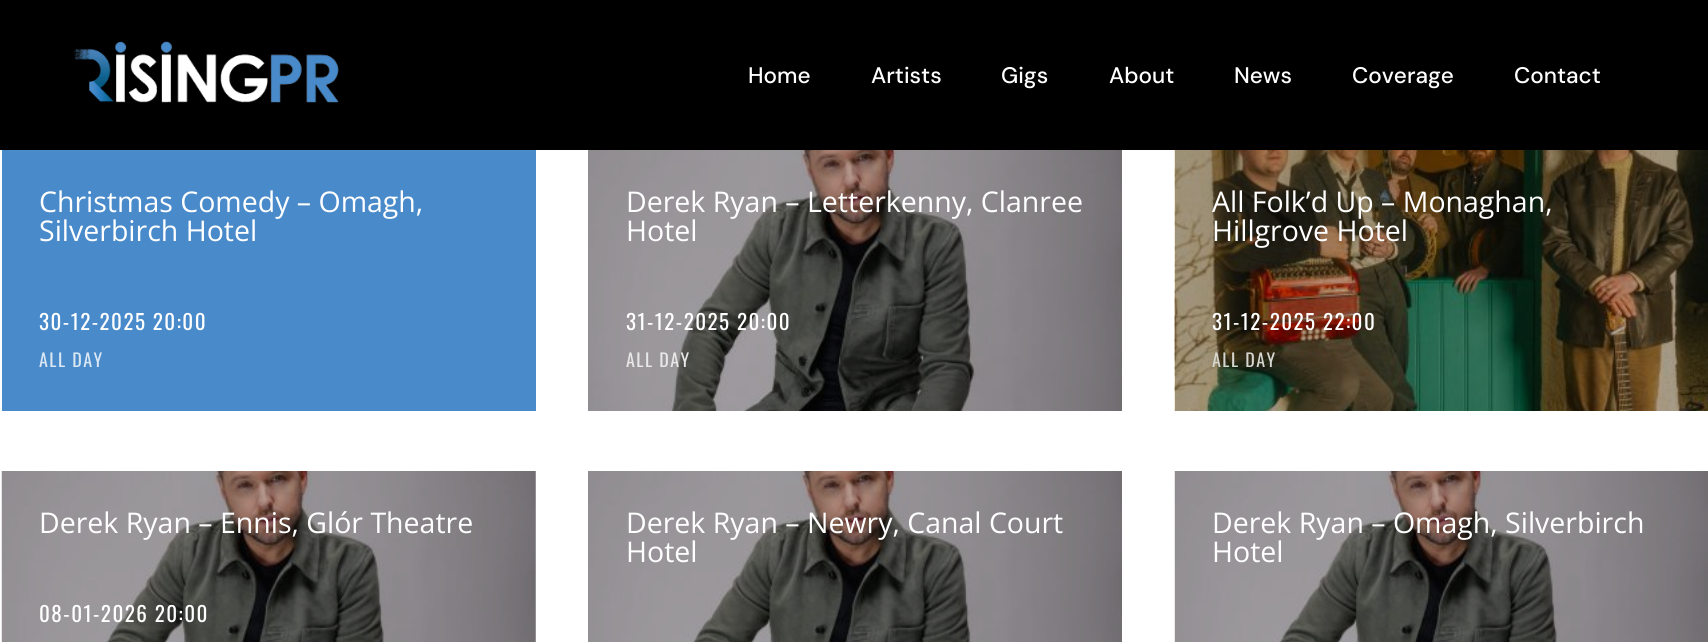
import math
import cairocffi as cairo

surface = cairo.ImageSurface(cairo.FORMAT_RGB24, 1708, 642)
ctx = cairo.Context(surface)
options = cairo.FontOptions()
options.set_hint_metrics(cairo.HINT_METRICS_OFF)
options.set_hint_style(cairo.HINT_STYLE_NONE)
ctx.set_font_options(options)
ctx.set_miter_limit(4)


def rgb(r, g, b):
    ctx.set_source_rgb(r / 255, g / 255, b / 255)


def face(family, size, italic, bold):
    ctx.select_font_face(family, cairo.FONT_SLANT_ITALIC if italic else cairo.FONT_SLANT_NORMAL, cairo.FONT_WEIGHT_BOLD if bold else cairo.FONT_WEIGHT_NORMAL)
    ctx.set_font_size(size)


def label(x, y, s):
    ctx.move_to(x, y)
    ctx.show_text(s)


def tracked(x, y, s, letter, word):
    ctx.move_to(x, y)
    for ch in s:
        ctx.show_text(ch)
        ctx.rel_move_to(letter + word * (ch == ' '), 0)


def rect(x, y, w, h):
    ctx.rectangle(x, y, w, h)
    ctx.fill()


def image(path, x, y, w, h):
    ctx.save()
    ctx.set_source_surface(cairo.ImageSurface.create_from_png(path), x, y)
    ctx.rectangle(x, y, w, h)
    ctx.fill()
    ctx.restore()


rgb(255, 255, 255)
ctx.paint()
rgb(179, 179, 179)
rect(535, 471, 1, 171)
rgb(0, 0, 0)
rect(0, 0, 1708, 150)
image('image0.png', 74, 41, 265, 62)
face('DM Sans Medium', 22.5, 0, 0)
rgb(255, 255, 255)
label(748, 83, 'Home')
label(871, 83, 'Artists')
label(1001, 83, 'Gigs')
label(1109, 83, 'About')
label(1234, 83, 'News')
label(1352, 83, 'Coverage')
label(1514, 83, 'Contact')
rgb(73, 138, 202)
rect(2, 150, 534, 261)
face('Open Sans', 28.5, 0, 0)
rgb(255, 255, 255)
label(39, 212, 'Christmas Comedy – Omagh,')
label(39, 241, 'Silverbirch Hotel')
face('Oswald', 21, 0, 0)
tracked(39, 330, '30-12-2025 20:00', 1.5, 0)
face('Oswald', 18, 0, 0)
rgb(219, 232, 244)
tracked(39, 367, 'ALL DAY', 1.5, 0)
image('image1.png', 588, 150, 534, 261)
face('Open Sans', 28.5, 0, 0)
rgb(255, 255, 255)
label(626, 212, 'Derek Ryan – Letterkenny, Clanree')
label(626, 241, 'Hotel')
face('Oswald', 21, 0, 0)
tracked(626, 330, '31-12-2025 20:00', 1.5, 0)
face('Oswald', 18, 0, 0)
rgb(233, 232, 232)
tracked(626, 367, 'ALL DAY', 1.5, 0)
image('image2.png', 1174, 150, 534, 261)
face('Open Sans', 28.5, 0, 0)
rgb(255, 255, 255)
label(1212, 212, 'All Folk’d Up – Monaghan,')
label(1212, 241, 'Hillgrove Hotel')
face('Oswald', 21, 0, 0)
tracked(1212, 330, '31-12-2025 22:00', 1.5, 0)
face('Oswald', 18, 0, 0)
rgb(215, 215, 210)
tracked(1212, 367, 'ALL DAY', 1.5, 0)
image('image3.png', 1, 471, 535, 171)
face('Open Sans', 28.5, 0, 0)
rgb(255, 255, 255)
label(39, 533, 'Derek Ryan – Ennis, Glór Theatre')
face('Oswald', 21, 0, 0)
tracked(39, 622, '08-01-2026 20:00', 1.5, 0)
image('image4.png', 588, 471, 534, 171)
face('Open Sans', 28.5, 0, 0)
label(626, 533, 'Derek Ryan – Newry, Canal Court')
label(626, 562, 'Hotel')
image('image5.png', 1174, 471, 534, 171)
label(1212, 533, 'Derek Ryan – Omagh, Silverbirch')
label(1212, 562, 'Hotel')
surface.write_to_png('render.png')
